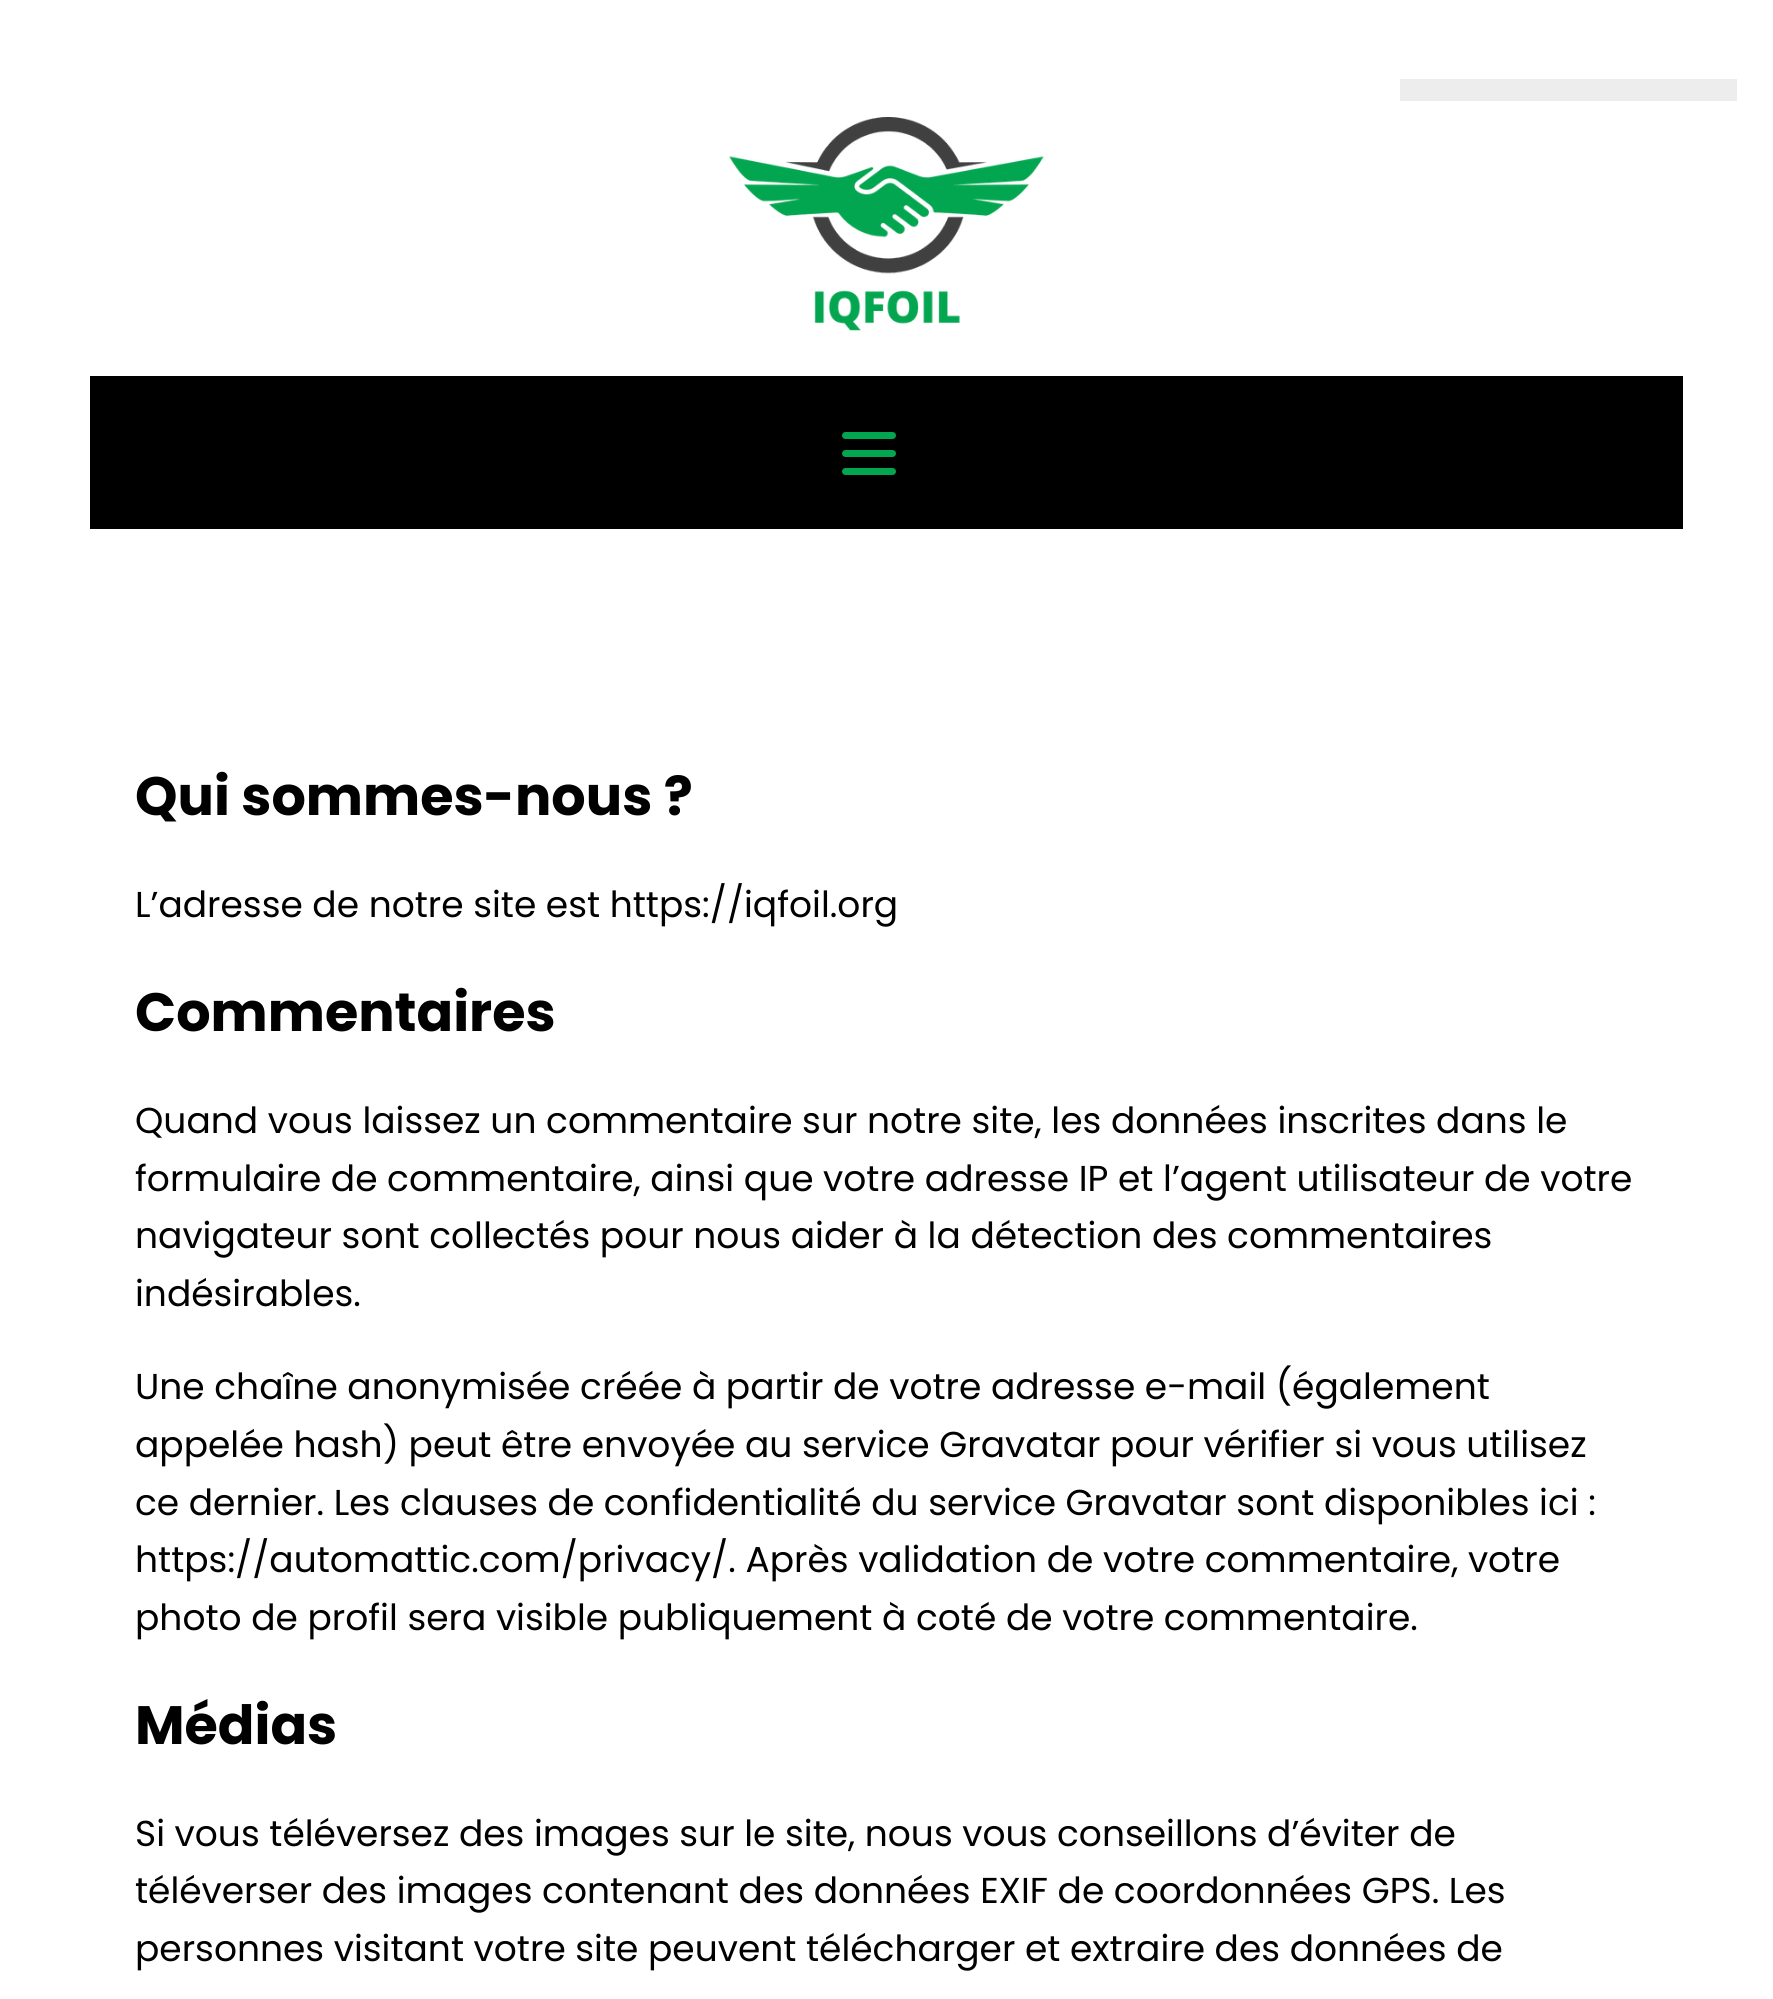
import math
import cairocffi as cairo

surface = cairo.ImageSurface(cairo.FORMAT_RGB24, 1773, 1999)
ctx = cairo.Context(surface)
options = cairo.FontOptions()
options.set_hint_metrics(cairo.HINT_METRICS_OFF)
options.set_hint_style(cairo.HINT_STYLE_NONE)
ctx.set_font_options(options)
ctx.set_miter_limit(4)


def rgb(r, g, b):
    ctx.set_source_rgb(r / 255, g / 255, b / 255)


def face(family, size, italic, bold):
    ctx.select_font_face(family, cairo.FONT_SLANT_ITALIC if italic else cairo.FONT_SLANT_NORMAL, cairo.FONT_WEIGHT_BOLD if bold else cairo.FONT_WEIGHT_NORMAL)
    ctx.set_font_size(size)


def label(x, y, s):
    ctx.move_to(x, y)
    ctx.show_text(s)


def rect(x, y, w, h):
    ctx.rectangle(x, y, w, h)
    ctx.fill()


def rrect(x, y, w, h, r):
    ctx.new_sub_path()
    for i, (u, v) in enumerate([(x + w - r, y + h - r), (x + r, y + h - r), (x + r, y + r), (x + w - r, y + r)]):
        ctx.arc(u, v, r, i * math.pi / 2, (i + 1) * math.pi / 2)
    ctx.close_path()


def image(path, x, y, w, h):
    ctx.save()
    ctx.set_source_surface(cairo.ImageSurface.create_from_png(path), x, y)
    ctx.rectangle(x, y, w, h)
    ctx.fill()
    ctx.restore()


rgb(255, 255, 255)
ctx.paint()
image('image0.png', 729, 117, 315, 214)
rgb(0, 0, 0)
rect(90, 376, 1593, 153)
rgb(3, 166, 80)
rrect(842, 432, 54, 7, 3.5)
ctx.fill()
rrect(842, 450, 54, 7, 3.5)
ctx.fill()
rrect(842, 468, 54, 7, 3.5)
ctx.fill()
rgb(237, 237, 237)
rect(1400, 79, 337, 22)
face('Poppins', 54, 0, 1)
rgb(0, 0, 0)
label(135, 815, 'Qui sommes-nous ?')
face('Poppins', 36, 0, 0)
label(135, 917, 'L’adresse de notre site est https://iqfoil.org')
face('Poppins', 54, 0, 1)
label(135, 1031, 'Commentaires')
face('Poppins', 36, 0, 0)
label(135, 1133, 'Quand vous laissez un commentaire sur notre site, les données inscrites dans le')
label(135, 1191, 'formulaire de commentaire, ainsi que votre adresse IP et l’agent utilisateur de votre')
label(135, 1248, 'navigateur sont collectés pour nous aider à la détection des commentaires')
label(135, 1306, 'indésirables.')
label(135, 1399, 'Une chaîne anonymisée créée à partir de votre adresse e-mail (également')
label(135, 1457, 'appelée hash) peut être envoyée au service Gravatar pour vérifier si vous utilisez')
label(135, 1515, 'ce dernier. Les clauses de confidentialité du service Gravatar sont disponibles ici :')
label(135, 1572, 'https://automattic.com/privacy/. Après validation de votre commentaire, votre')
label(135, 1630, 'photo de profil sera visible publiquement à coté de votre commentaire.')
face('Poppins', 54, 0, 1)
label(135, 1744, 'Médias')
face('Poppins', 36, 0, 0)
label(135, 1846, 'Si vous téléversez des images sur le site, nous vous conseillons d’éviter de')
label(135, 1903, 'téléverser des images contenant des données EXIF de coordonnées GPS. Les')
label(135, 1961, 'personnes visitant votre site peuvent télécharger et extraire des données de')
surface.write_to_png('render.png')
